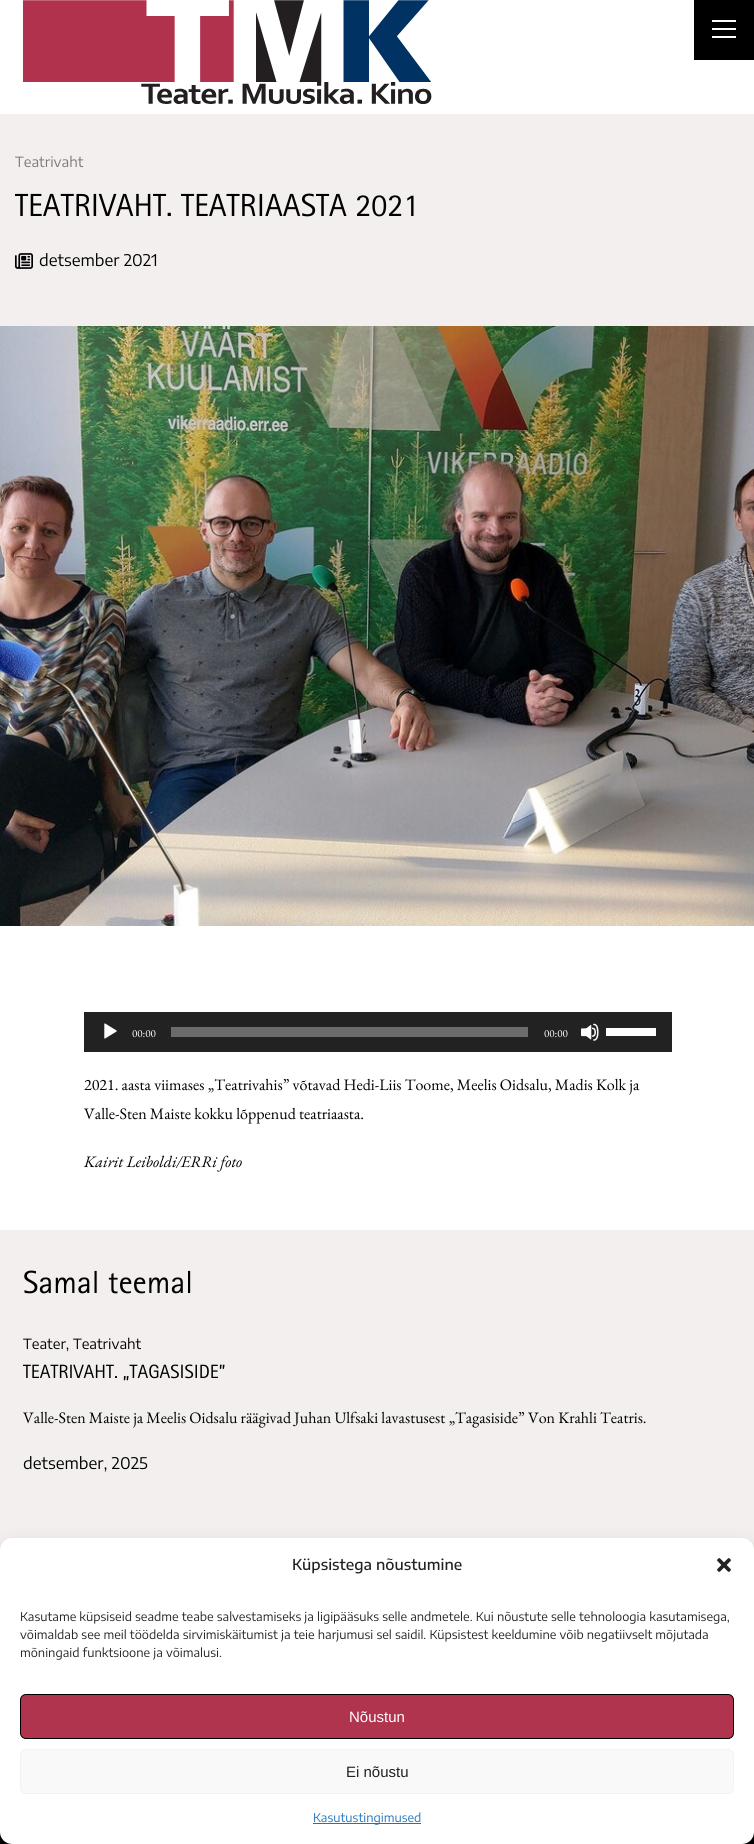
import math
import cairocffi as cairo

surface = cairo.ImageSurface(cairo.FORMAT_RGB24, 754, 1844)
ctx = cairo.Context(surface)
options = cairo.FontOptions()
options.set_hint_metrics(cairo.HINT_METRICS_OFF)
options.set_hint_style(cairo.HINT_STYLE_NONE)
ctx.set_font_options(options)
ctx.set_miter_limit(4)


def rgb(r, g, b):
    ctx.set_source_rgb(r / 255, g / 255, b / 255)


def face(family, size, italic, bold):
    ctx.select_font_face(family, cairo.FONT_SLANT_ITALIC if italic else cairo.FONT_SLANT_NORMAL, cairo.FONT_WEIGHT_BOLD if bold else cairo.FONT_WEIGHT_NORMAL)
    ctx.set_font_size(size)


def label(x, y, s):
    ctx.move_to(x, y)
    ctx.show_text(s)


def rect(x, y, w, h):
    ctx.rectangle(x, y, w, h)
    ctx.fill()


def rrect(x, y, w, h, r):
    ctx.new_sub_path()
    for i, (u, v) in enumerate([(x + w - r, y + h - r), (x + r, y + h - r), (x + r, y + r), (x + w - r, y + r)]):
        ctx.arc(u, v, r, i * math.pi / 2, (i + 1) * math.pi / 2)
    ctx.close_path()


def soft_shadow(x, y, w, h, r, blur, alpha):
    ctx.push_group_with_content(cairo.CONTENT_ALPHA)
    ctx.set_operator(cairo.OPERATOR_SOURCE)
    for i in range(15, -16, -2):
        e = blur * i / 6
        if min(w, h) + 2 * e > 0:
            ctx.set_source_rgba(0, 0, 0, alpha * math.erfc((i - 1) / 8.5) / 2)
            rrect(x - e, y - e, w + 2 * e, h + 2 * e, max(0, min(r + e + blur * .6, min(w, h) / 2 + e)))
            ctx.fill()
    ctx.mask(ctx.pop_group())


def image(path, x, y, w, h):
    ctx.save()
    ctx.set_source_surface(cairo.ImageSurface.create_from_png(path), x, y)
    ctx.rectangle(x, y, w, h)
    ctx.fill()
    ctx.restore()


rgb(255, 255, 255)
ctx.paint()
rgb(0, 0, 0)
rect(694, 0, 60, 60)
rgb(255, 255, 255)
rect(712, 20, 24, 2)
rect(712, 28, 24, 2)
rect(712, 36, 24, 2)
image('image0.png', 23, 0, 409, 104)
rgb(243, 239, 239)
rect(0, 114, 754, 212)
face('Encode Sans Semi Expanded', 14, 0, 0)
rgb(122, 120, 120)
label(15, 167, 'Teatrivaht')
face('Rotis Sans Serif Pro', 32, 0, 0)
rgb(0, 0, 0)
label(15, 216, 'TEATRIVAHT. TEATRIAASTA 2021')
image('image1.png', 15, 253, 18, 16)
face('Encode Sans Semi Expanded', 16, 0, 0)
label(39, 266, 'detsember 2021')
image('image2.png', 0, 326, 754, 600)
rgb(34, 34, 34)
rect(84, 1012, 588, 40)
image('image3.png', 104, 1023, 13, 16)
face('EB Garamond', 11, 0, 0)
rgb(255, 255, 255)
label(132, 1037, '00:00')
rgb(107, 107, 107)
rect(171, 1027, 357, 10)
rgb(255, 255, 255)
label(544, 1037, '00:00')
image('image4.png', 581, 1023, 18, 18)
rect(606, 1028, 50, 8)
face('EB Garamond', 16, 0, 0)
rgb(0, 0, 0)
label(84, 1090, '2021. aasta viimases „Teatrivahis” võtavad Hedi-Liis Toome, Meelis Oidsalu, Madis Kolk ja')
label(84, 1119, 'Valle-Sten Maiste kokku lõppenud teatriaasta.')
face('EB Garamond', 16, 1, 0)
label(84, 1167, 'Kairit Leiboldi/ERRi foto')
rgb(243, 239, 239)
rect(0, 1230, 754, 320)
face('Rotis Sans Serif Pro', 32, 0, 0)
rgb(0, 0, 0)
label(23, 1293, 'Samal teemal')
face('Encode Sans Semi Expanded', 14, 0, 0)
label(23, 1349, 'Teater, Teatrivaht')
face('Rotis Sans Serif Pro', 19.25, 0, 0)
label(23, 1378, 'TEATRIVAHT. „TAGASISIDE”')
face('EB Garamond', 16, 0, 0)
label(23, 1423, 'Valle-Sten Maiste ja Meelis Oidsalu räägivad Juhan Ulfsaki lavastusest „Tagasiside” Von Krahli Teatris.')
face('Encode Sans Semi Expanded', 16, 0, 0)
label(23, 1469, 'detsember, 2025')
rect(0, 1832, 754, 12)
rgb(0, 0, 0)
soft_shadow(0, 1544, 754, 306, 12, 3, 0.23)
soft_shadow(0, 1548, 754, 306, 12, 10, 0.19)
rgb(255, 255, 255)
rrect(0, 1538, 754, 306, 12)
ctx.fill()
face('Encode Sans Semi Expanded Medium', 15, 0, 0)
rgb(34, 34, 34)
label(292, 1570, 'Küpsistega nõustumine')
image('image5.png', 717, 1558, 14, 14)
face('Encode Sans Semi Expanded', 12, 0, 0)
label(20, 1621, 'Kasutame küpsiseid seadme teabe salvestamiseks ja ligipääsuks selle andmetele. Kui nõustute selle tehnoloogia kasutamisega,')
label(20, 1639, 'võimaldab see meil töödelda sirvimiskäitumist ja teie harjumusi sel saidil. Küpsistest keeldumine võib negatiivselt mõjutada')
label(20, 1657, 'mõningaid funktsioone ja võimalusi.')
rgb(176, 52, 78)
rrect(20.5, 1694.5, 713, 44, 5.5)
ctx.fill_preserve()
rgb(0, 0, 0)
ctx.set_line_width(1)
ctx.stroke()
face('Liberation Sans', 15, 0, 0)
rgb(255, 255, 255)
label(349, 1722, 'Nõustun')
rgb(249, 249, 249)
rrect(20.5, 1749.5, 713, 44, 5.5)
ctx.fill_preserve()
rgb(242, 242, 242)
ctx.stroke()
rgb(34, 34, 34)
label(346, 1777, 'Ei nõustu')
rgb(30, 115, 190)
rect(313, 1823, 108, 1)
face('Encode Sans Semi Expanded', 12, 0, 0)
label(313, 1822, 'Kasutustingimused')
surface.write_to_png('render.png')
